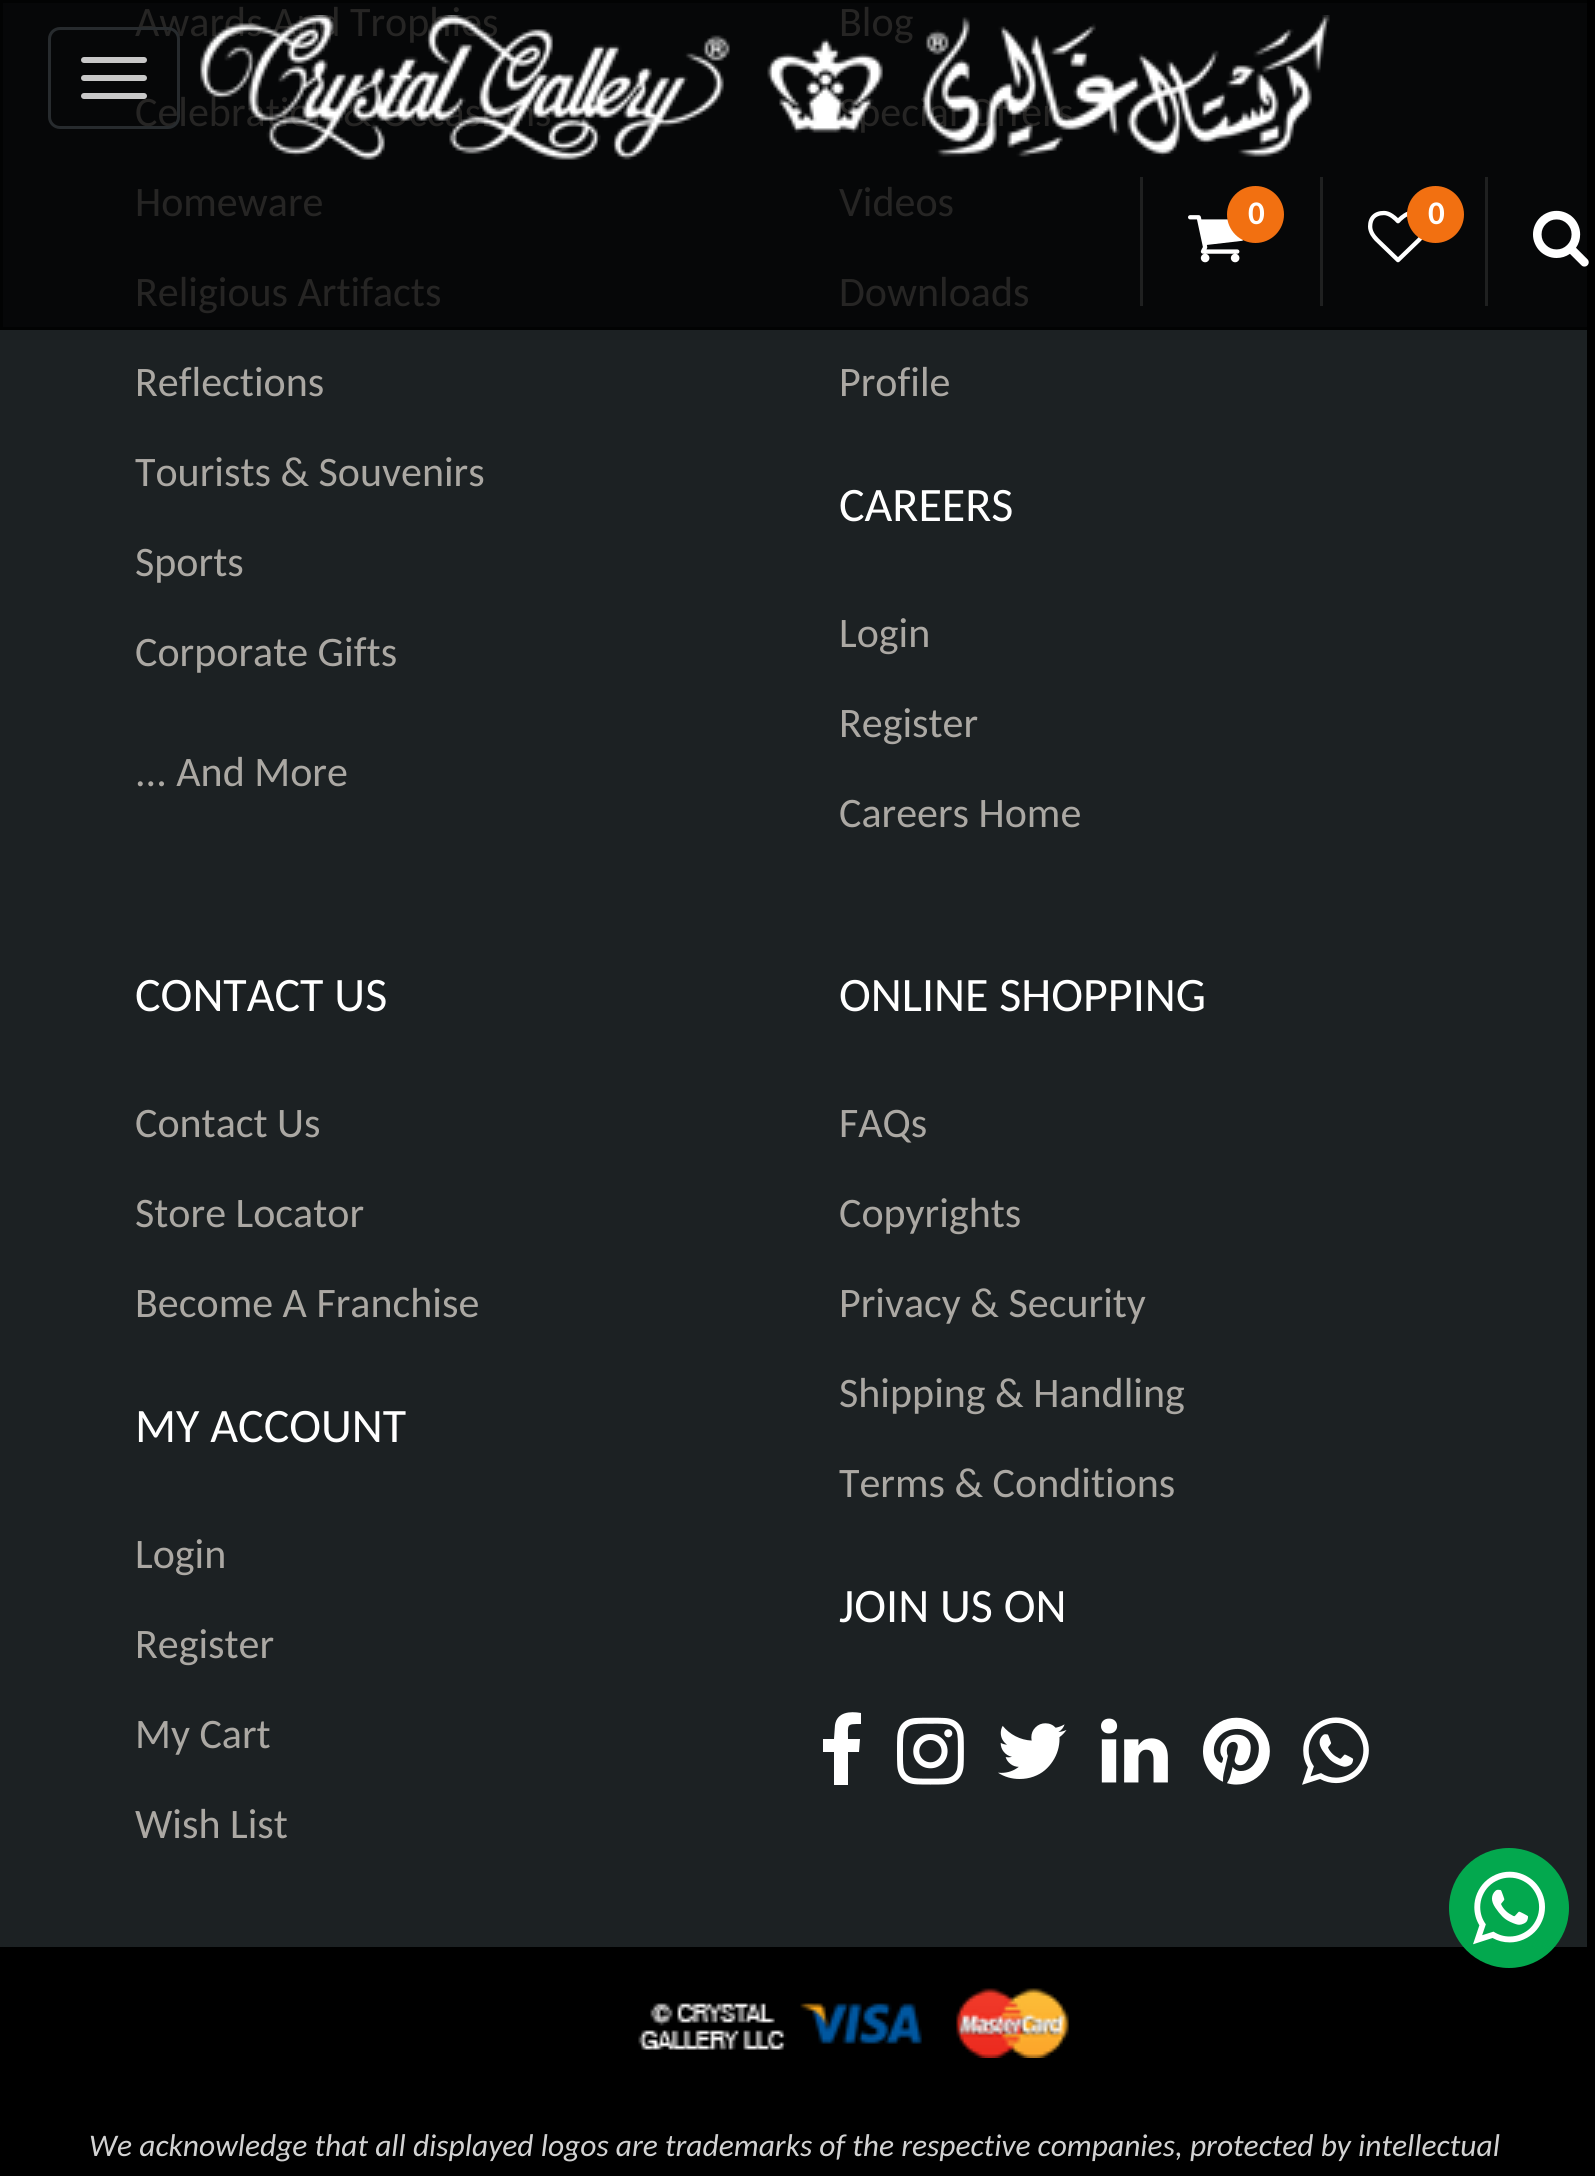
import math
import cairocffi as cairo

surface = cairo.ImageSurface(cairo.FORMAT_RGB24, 1595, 2176)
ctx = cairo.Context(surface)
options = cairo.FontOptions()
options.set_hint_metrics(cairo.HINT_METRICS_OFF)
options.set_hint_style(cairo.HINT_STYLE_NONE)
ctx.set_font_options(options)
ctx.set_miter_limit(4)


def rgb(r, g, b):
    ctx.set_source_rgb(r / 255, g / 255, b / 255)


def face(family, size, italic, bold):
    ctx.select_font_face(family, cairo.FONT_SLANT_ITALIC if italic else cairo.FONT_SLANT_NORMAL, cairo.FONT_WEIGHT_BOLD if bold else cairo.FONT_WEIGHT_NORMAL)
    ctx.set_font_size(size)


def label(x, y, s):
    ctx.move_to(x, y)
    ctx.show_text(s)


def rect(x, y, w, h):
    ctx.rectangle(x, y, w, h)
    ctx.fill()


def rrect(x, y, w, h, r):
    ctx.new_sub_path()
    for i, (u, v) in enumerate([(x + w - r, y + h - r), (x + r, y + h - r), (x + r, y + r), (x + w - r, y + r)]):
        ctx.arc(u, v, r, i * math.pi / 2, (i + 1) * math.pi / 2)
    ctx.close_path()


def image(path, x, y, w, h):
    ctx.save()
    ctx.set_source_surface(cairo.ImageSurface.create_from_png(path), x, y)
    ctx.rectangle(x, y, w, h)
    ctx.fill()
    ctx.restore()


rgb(0, 0, 0)
ctx.paint()
rgb(28, 33, 35)
rect(0, 330, 1587, 1617)
rgb(6, 7, 8)
rect(0, 0, 1587, 330)
face('Carlito', 42, 0, 0)
rgb(38, 37, 36)
label(135, 36, 'Awards And Trophies')
label(135, 126, 'Celebration & Occasions')
label(135, 216, 'Homeware')
label(135, 306, 'Religious Artifacts')
rgb(171, 168, 163)
label(135, 396, 'Reflections')
label(135, 486, 'Tourists & Souvenirs')
label(135, 576, 'Sports')
label(135, 666, 'Corporate Gifts')
label(135, 786, '... And More')
rgb(38, 37, 36)
label(839, 36, 'Blog')
label(839, 126, 'Special Offers')
label(839, 216, 'Videos')
label(839, 306, 'Downloads')
rgb(171, 168, 163)
label(839, 396, 'Profile')
face('Carlito', 48, 0, 0)
rgb(255, 255, 255)
label(839, 521, 'CAREERS')
face('Carlito', 42, 0, 0)
rgb(171, 168, 163)
label(839, 647, 'Login')
label(839, 737, 'Register')
label(839, 827, 'Careers Home')
face('Carlito', 48, 0, 0)
rgb(255, 255, 255)
label(135, 1011, 'CONTACT US')
face('Carlito', 42, 0, 0)
rgb(171, 168, 163)
label(135, 1137, 'Contact Us')
label(135, 1227, 'Store Locator')
label(135, 1317, 'Become A Franchise')
face('Carlito', 48, 0, 0)
rgb(255, 255, 255)
label(135, 1442, 'MY ACCOUNT')
face('Carlito', 42, 0, 0)
rgb(171, 168, 163)
label(135, 1568, 'Login')
label(135, 1658, 'Register')
label(135, 1748, 'My Cart')
label(135, 1838, 'Wish List')
face('Carlito', 48, 0, 0)
rgb(255, 255, 255)
label(839, 1011, 'ONLINE SHOPPING')
face('Carlito', 42, 0, 0)
rgb(171, 168, 163)
label(839, 1137, 'FAQs')
label(839, 1227, 'Copyrights')
label(839, 1317, 'Privacy & Security')
label(839, 1407, 'Shipping & Handling')
label(839, 1497, 'Terms & Conditions')
face('Carlito', 48, 0, 0)
rgb(255, 255, 255)
label(839, 1622, 'JOIN US ON')
ctx.new_path()
ctx.move_to(861, 1713)
ctx.line_to(861, 1724)
ctx.curve_to(846, 1724, 848, 1724, 848, 1739)
ctx.line_to(860, 1739)
ctx.line_to(859, 1752)
ctx.line_to(848, 1752)
ctx.line_to(848, 1785)
ctx.line_to(834, 1785)
ctx.line_to(834, 1752)
ctx.line_to(823, 1752)
ctx.line_to(823, 1739)
ctx.line_to(834, 1739)
ctx.line_to(835, 1725)
ctx.curve_to(837, 1712, 850, 1711, 861, 1713)
ctx.close_path()
ctx.fill()
image('image0.png', 897, 1717, 67, 68)
image('image1.png', 998, 1723, 69, 56)
image('image2.png', 1101, 1718, 67, 65)
image('image3.png', 1203, 1717, 67, 68)
image('image4.png', 1302, 1717, 67, 68)
ctx.rectangle(1.5, 1.5, 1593, 327)
ctx.set_source_rgba(0, 0, 0, 0.6)
ctx.set_line_width(3)
ctx.stroke()
rrect(49.5, 28.5, 129, 99, 10.5)
rgb(39, 43, 46)
ctx.stroke()
rgb(200, 200, 200)
rrect(81, 57, 66, 6, 3)
ctx.fill()
rrect(81, 75, 66, 6, 3)
ctx.fill()
rrect(81, 93, 66, 6, 3)
ctx.fill()
image('image5.png', 200, 15, 1130, 145)
rgb(31, 32, 32)
rect(1140, 177, 3, 129)
image('image6.png', 1188, 215, 56, 48)
rgb(242, 112, 17)
ctx.arc(1255.5, 214.5, 28.5, 0, 2 * math.pi)
ctx.fill()
face('Carlito', 33, 0, 1)
rgb(255, 255, 255)
label(1248, 224, '0')
rgb(31, 32, 32)
rect(1320, 177, 3, 129)
image('image7.png', 1368, 210, 55, 53)
rgb(242, 112, 17)
ctx.arc(1435.5, 214.5, 28.5, 0, 2 * math.pi)
ctx.fill()
rgb(255, 255, 255)
label(1428, 224, '0')
rgb(31, 32, 32)
rect(1485, 177, 3, 129)
image('image8.png', 1533, 210, 56, 57)
rgb(3, 168, 78)
ctx.arc(1509, 1908, 60, 0, 2 * math.pi)
ctx.fill()
image('image9.png', 1473, 1871, 72, 74)
image('image10.png', 638, 1988, 431, 70)
face('Carlito', 31.5, 1, 0)
rgb(210, 210, 210)
label(89, 2156, 'We acknowledge that all displayed logos are trademarks of the respective companies, protected by intellectual')
surface.write_to_png('render.png')
